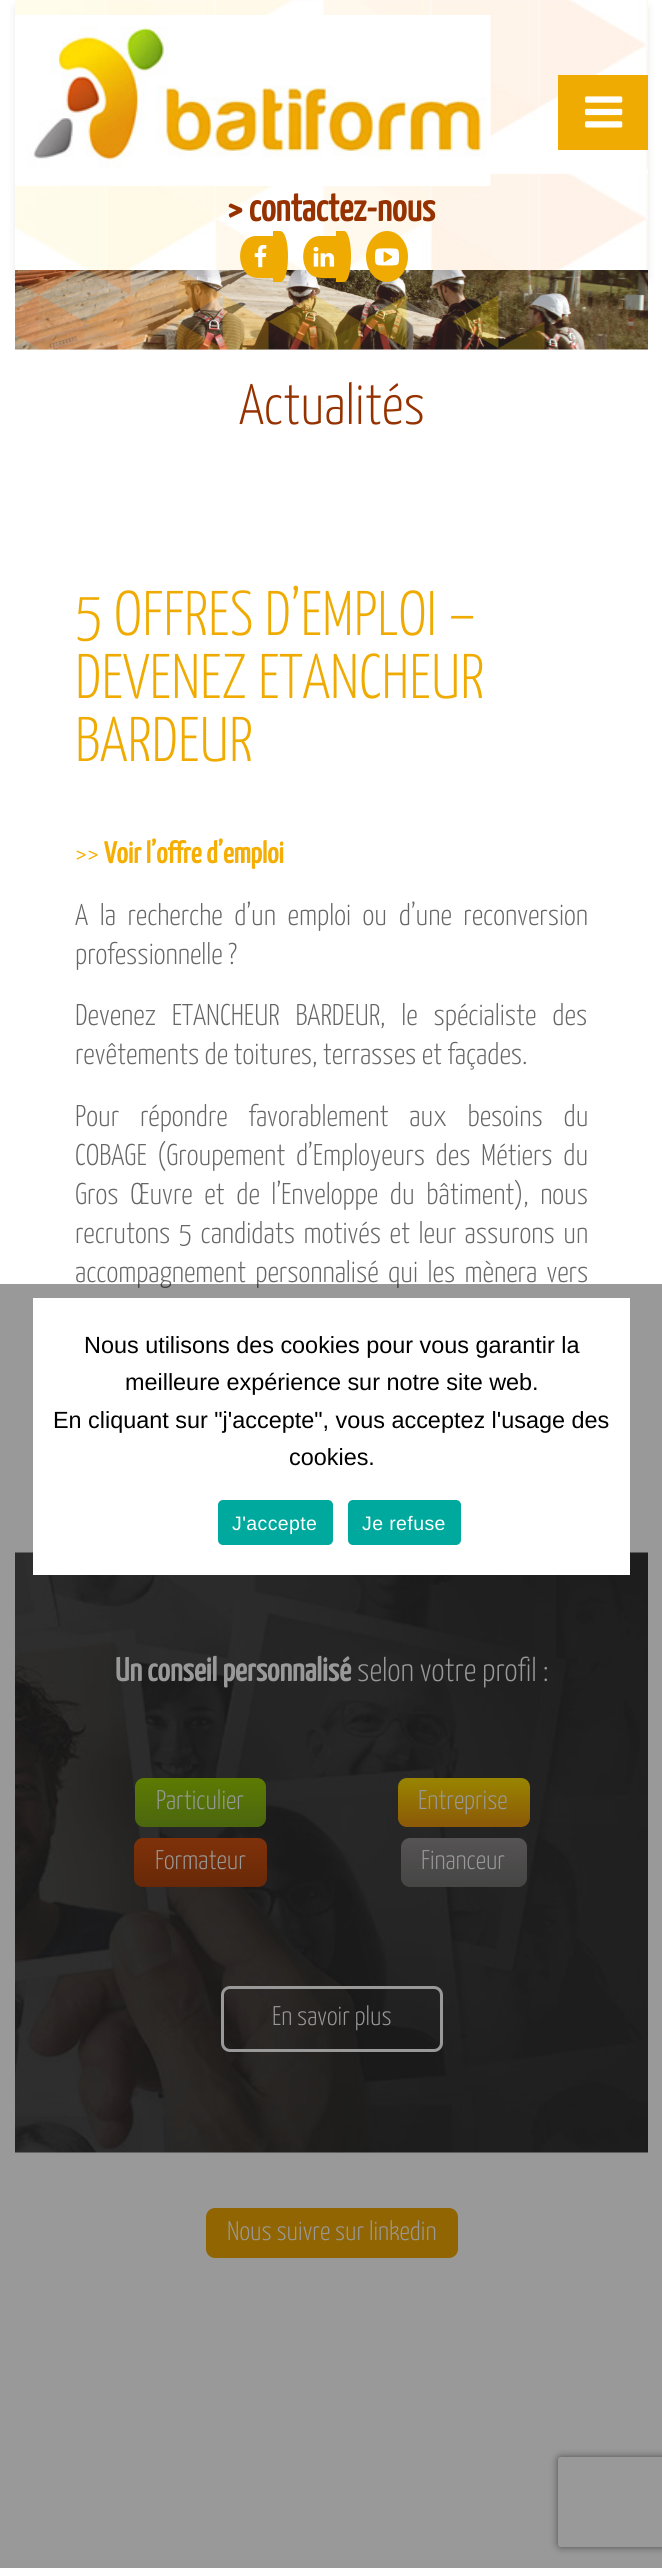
import math
import cairocffi as cairo

surface = cairo.ImageSurface(cairo.FORMAT_RGB24, 662, 2568)
ctx = cairo.Context(surface)
options = cairo.FontOptions()
options.set_hint_metrics(cairo.HINT_METRICS_OFF)
options.set_hint_style(cairo.HINT_STYLE_NONE)
ctx.set_font_options(options)
ctx.set_miter_limit(4)


def rgb(r, g, b):
    ctx.set_source_rgb(r / 255, g / 255, b / 255)


def face(family, size, italic, bold):
    ctx.select_font_face(family, cairo.FONT_SLANT_ITALIC if italic else cairo.FONT_SLANT_NORMAL, cairo.FONT_WEIGHT_BOLD if bold else cairo.FONT_WEIGHT_NORMAL)
    ctx.set_font_size(size)


def label(x, y, s):
    ctx.move_to(x, y)
    ctx.show_text(s)


def tracked(x, y, s, letter, word):
    ctx.move_to(x, y)
    for ch in s:
        ctx.show_text(ch)
        ctx.rel_move_to(letter + word * (ch == ' '), 0)


def rect(x, y, w, h):
    ctx.rectangle(x, y, w, h)
    ctx.fill()


def rrect(x, y, w, h, r):
    ctx.new_sub_path()
    for i, (u, v) in enumerate([(x + w - r, y + h - r), (x + r, y + h - r), (x + r, y + r), (x + w - r, y + r)]):
        ctx.arc(u, v, r, i * math.pi / 2, (i + 1) * math.pi / 2)
    ctx.close_path()


def soft_shadow(x, y, w, h, r, blur, alpha):
    ctx.push_group_with_content(cairo.CONTENT_ALPHA)
    ctx.set_operator(cairo.OPERATOR_SOURCE)
    for i in range(15, -16, -2):
        e = blur * i / 6
        if min(w, h) + 2 * e > 0:
            ctx.set_source_rgba(0, 0, 0, alpha * math.erfc((i - 1) / 8.5) / 2)
            rrect(x - e, y - e, w + 2 * e, h + 2 * e, max(0, min(r + e + blur * .6, min(w, h) / 2 + e)))
            ctx.fill()
    ctx.mask(ctx.pop_group())


def image(path, x, y, w, h):
    ctx.save()
    ctx.set_source_surface(cairo.ImageSurface.create_from_png(path), x, y)
    ctx.rectangle(x, y, w, h)
    ctx.fill()
    ctx.restore()


rgb(255, 255, 255)
ctx.paint()
image('image0.png', 15, 0, 633, 270)
image('image6.png', 15, 270, 633, 80)
image('image7.png', 15, 270, 530, 80)
ctx.save()
ctx.set_fill_rule(cairo.FILL_RULE_EVEN_ODD)
ctx.new_path()
ctx.move_to(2, 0)
ctx.line_to(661, 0)
ctx.line_to(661, 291)
ctx.line_to(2, 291)
ctx.close_path()
ctx.move_to(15, 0)
ctx.line_to(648, 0)
ctx.line_to(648, 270)
ctx.line_to(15, 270)
ctx.close_path()
ctx.clip()
rgb(33, 33, 33)
soft_shadow(15, 8, 633, 270, 0, 4, 0.1)
ctx.restore()
image('image1.png', 15, 15, 476, 171)
rgb(239, 171, 1)
rect(558, 75, 90, 75)
image('image2.png', 585, 96, 38, 32)
face('Yanone Kaffeesatz', 39, 0, 1)
rgb(149, 50, 0)
label(227, 221, '> contactez-nous')
rgb(239, 171, 1)
ctx.new_path()
ctx.move_to(256, 236)
ctx.line_to(273, 236)
ctx.line_to(273, 278)
ctx.curve_to(266, 278, 256, 279, 250, 276)
ctx.curve_to(235, 268, 237, 236, 256, 236)
ctx.close_path()
ctx.move_to(273, 231)
ctx.line_to(280, 231)
ctx.curve_to(285, 231, 288, 242, 288, 256)
ctx.curve_to(288, 271, 285, 282, 280, 282)
ctx.line_to(273, 282)
ctx.close_path()
ctx.fill()
image('image3.png', 254, 244, 13, 24)
ctx.new_path()
ctx.move_to(320, 236)
ctx.line_to(336, 236)
ctx.line_to(336, 278)
ctx.curve_to(329, 278, 319, 279, 313, 276)
ctx.curve_to(298, 268, 300, 236, 320, 236)
ctx.close_path()
ctx.move_to(336, 231)
ctx.line_to(344, 231)
ctx.curve_to(348, 231, 351, 242, 351, 256)
ctx.curve_to(351, 271, 348, 282, 344, 282)
ctx.line_to(336, 282)
ctx.close_path()
ctx.fill()
image('image4.png', 313, 246, 22, 21)
ctx.new_path()
ctx.move_to(387, 231)
ctx.curve_to(398.5, 231, 408, 242.5, 408, 256.5)
ctx.curve_to(408, 270.5, 398.5, 282, 387, 282)
ctx.curve_to(375.5, 282, 366, 270.5, 366, 256.5)
ctx.curve_to(366, 242.5, 375.5, 231, 387, 231)
ctx.close_path()
ctx.fill()
image('image5.png', 375, 248, 24, 18)
face('Yanone Kaffeesatz Light', 57, 0, 0)
rgb(149, 50, 0)
label(239, 424, 'Actualités')
face('Yanone Kaffeesatz Light', 63, 0, 0)
rgb(239, 171, 1)
label(75, 635, '5 OFFRES D’EMPLOI –')
label(75, 698, 'DEVENEZ ETANCHEUR')
label(75, 761, 'BARDEUR')
face('Yanone Kaffeesatz Light', 30, 0, 0)
rgb(245, 174, 3)
label(75, 863, '>>')
face('Yanone Kaffeesatz', 30, 0, 1)
label(104, 863, 'Voir l’offre d’emploi')
face('Yanone Kaffeesatz Light', 30, 0, 0)
rgb(102, 102, 102)
tracked(75, 925, 'A la recherche d’un emploi ou d’une reconversion', 0, 6.25)
label(75, 964, 'professionnelle ?')
tracked(75, 1025, 'Devenez ETANCHEUR BARDEUR, le spécialiste des', 0, 10.5)
label(75, 1064, 'revêtements de toitures, terrasses et façades.')
tracked(75, 1126, 'Pour répondre favorablement aux besoins du', 0, 15.5)
tracked(75, 1165, 'COBAGE (Groupement d’Employeurs des Métiers du', 0, 5.25)
tracked(75, 1204, 'Gros Œuvre et de l’Enveloppe du bâtiment), nous', 0, 6.25)
tracked(75, 1243, 'recrutons 5 candidats motivés et leur assurons un', 0, 3.25)
tracked(75, 1282, 'accompagnement personnalisé qui les mènera vers', 0, 4)
image('image8.png', 15, 1552, 633, 601)
face('Yanone Kaffeesatz', 33, 0, 1)
rgb(255, 255, 255)
label(115, 1681, 'Un conseil personnalisé')
face('Yanone Kaffeesatz Light', 33, 0, 0)
label(357, 1681, 'selon votre profil :')
gradient = cairo.LinearGradient(200, 1778, 200, 1827)
gradient.add_color_stop_rgba(0, 0.608, 0.8, 0.012, 1)
gradient.add_color_stop_rgba(1, 0.49, 0.671, 0.098, 1)
ctx.set_source(gradient)
rrect(135, 1778, 131, 49, 9)
ctx.fill()
face('Yanone Kaffeesatz Light', 27, 0, 0)
rgb(255, 255, 255)
label(156, 1809, 'Particulier')
gradient = cairo.LinearGradient(464, 1778, 464, 1827)
gradient.add_color_stop_rgba(0, 1, 0.867, 0.004, 1)
gradient.add_color_stop_rgba(1, 0.91, 0.58, 0.051, 1)
ctx.set_source(gradient)
rrect(398, 1778, 132, 49, 9)
ctx.fill()
rgb(255, 255, 255)
label(418, 1809, 'Entreprise')
gradient = cairo.LinearGradient(200, 1838, 200, 1887)
gradient.add_color_stop_rgba(0, 0.831, 0.325, 0.063, 1)
gradient.add_color_stop_rgba(1, 0.682, 0.263, 0.051, 1)
ctx.set_source(gradient)
rrect(134, 1838, 133, 49, 9)
ctx.fill()
rgb(255, 255, 255)
label(155, 1869, 'Formateur')
gradient = cairo.LinearGradient(464, 1838, 464, 1887)
gradient.add_color_stop_rgba(0, 0.557, 0.545, 0.549, 1)
gradient.add_color_stop_rgba(1, 0.455, 0.451, 0.447, 1)
ctx.set_source(gradient)
rrect(401, 1838, 126, 49, 9)
ctx.fill()
rgb(255, 255, 255)
label(421, 1869, 'Financeur')
rrect(222.5, 1987.5, 219, 63, 7.5)
ctx.set_line_width(3)
ctx.stroke()
label(272, 2025, 'En savoir plus')
rgb(241, 170, 4)
rrect(206, 2208, 252, 50, 9)
ctx.fill()
rgb(255, 255, 255)
label(227, 2240, 'Nous suivre sur linkedin')
ctx.save()
ctx.set_fill_rule(cairo.FILL_RULE_EVEN_ODD)
ctx.new_path()
ctx.move_to(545, 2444)
ctx.line_to(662, 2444)
ctx.line_to(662, 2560)
ctx.line_to(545, 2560)
ctx.close_path()
ctx.move_to(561, 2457)
ctx.line_to(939, 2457)
ctx.curve_to(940.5, 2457, 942, 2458.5, 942, 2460)
ctx.line_to(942, 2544)
ctx.curve_to(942, 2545.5, 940.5, 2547, 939, 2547)
ctx.line_to(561, 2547)
ctx.curve_to(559.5, 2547, 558, 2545.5, 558, 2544)
ctx.line_to(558, 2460)
ctx.curve_to(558, 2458.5, 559.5, 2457, 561, 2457)
ctx.close_path()
ctx.clip()
rgb(128, 128, 128)
soft_shadow(558, 2457, 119, 90, 3, 4, 1)
ctx.restore()
ctx.set_source_rgba(0, 0, 0, 0.4)
rect(0, 1284, 662, 1284)
rgb(255, 255, 255)
rect(33, 1298, 597, 277)
face('Liberation Sans', 23.4, 0, 0)
rgb(0, 0, 0)
label(84, 1353, 'Nous utilisons des cookies pour vous garantir la')
label(125, 1390, 'meilleure expérience sur notre site web.')
label(53, 1428, 'En cliquant sur "j\'accepte", vous acceptez l\'usage des')
label(289, 1465, 'cookies.')
rgb(0, 169, 157)
rrect(218, 1500, 115, 45, 5)
ctx.fill()
face('Liberation Sans', 19.5, 0, 0)
rgb(255, 255, 255)
tracked(232, 1530, 'J\'accepte', 0.4, 0)
rgb(0, 169, 157)
rrect(348, 1500, 113, 45, 5)
ctx.fill()
rgb(255, 255, 255)
tracked(362, 1530, 'Je refuse', 0.4, 0)
surface.write_to_png('render.png')
